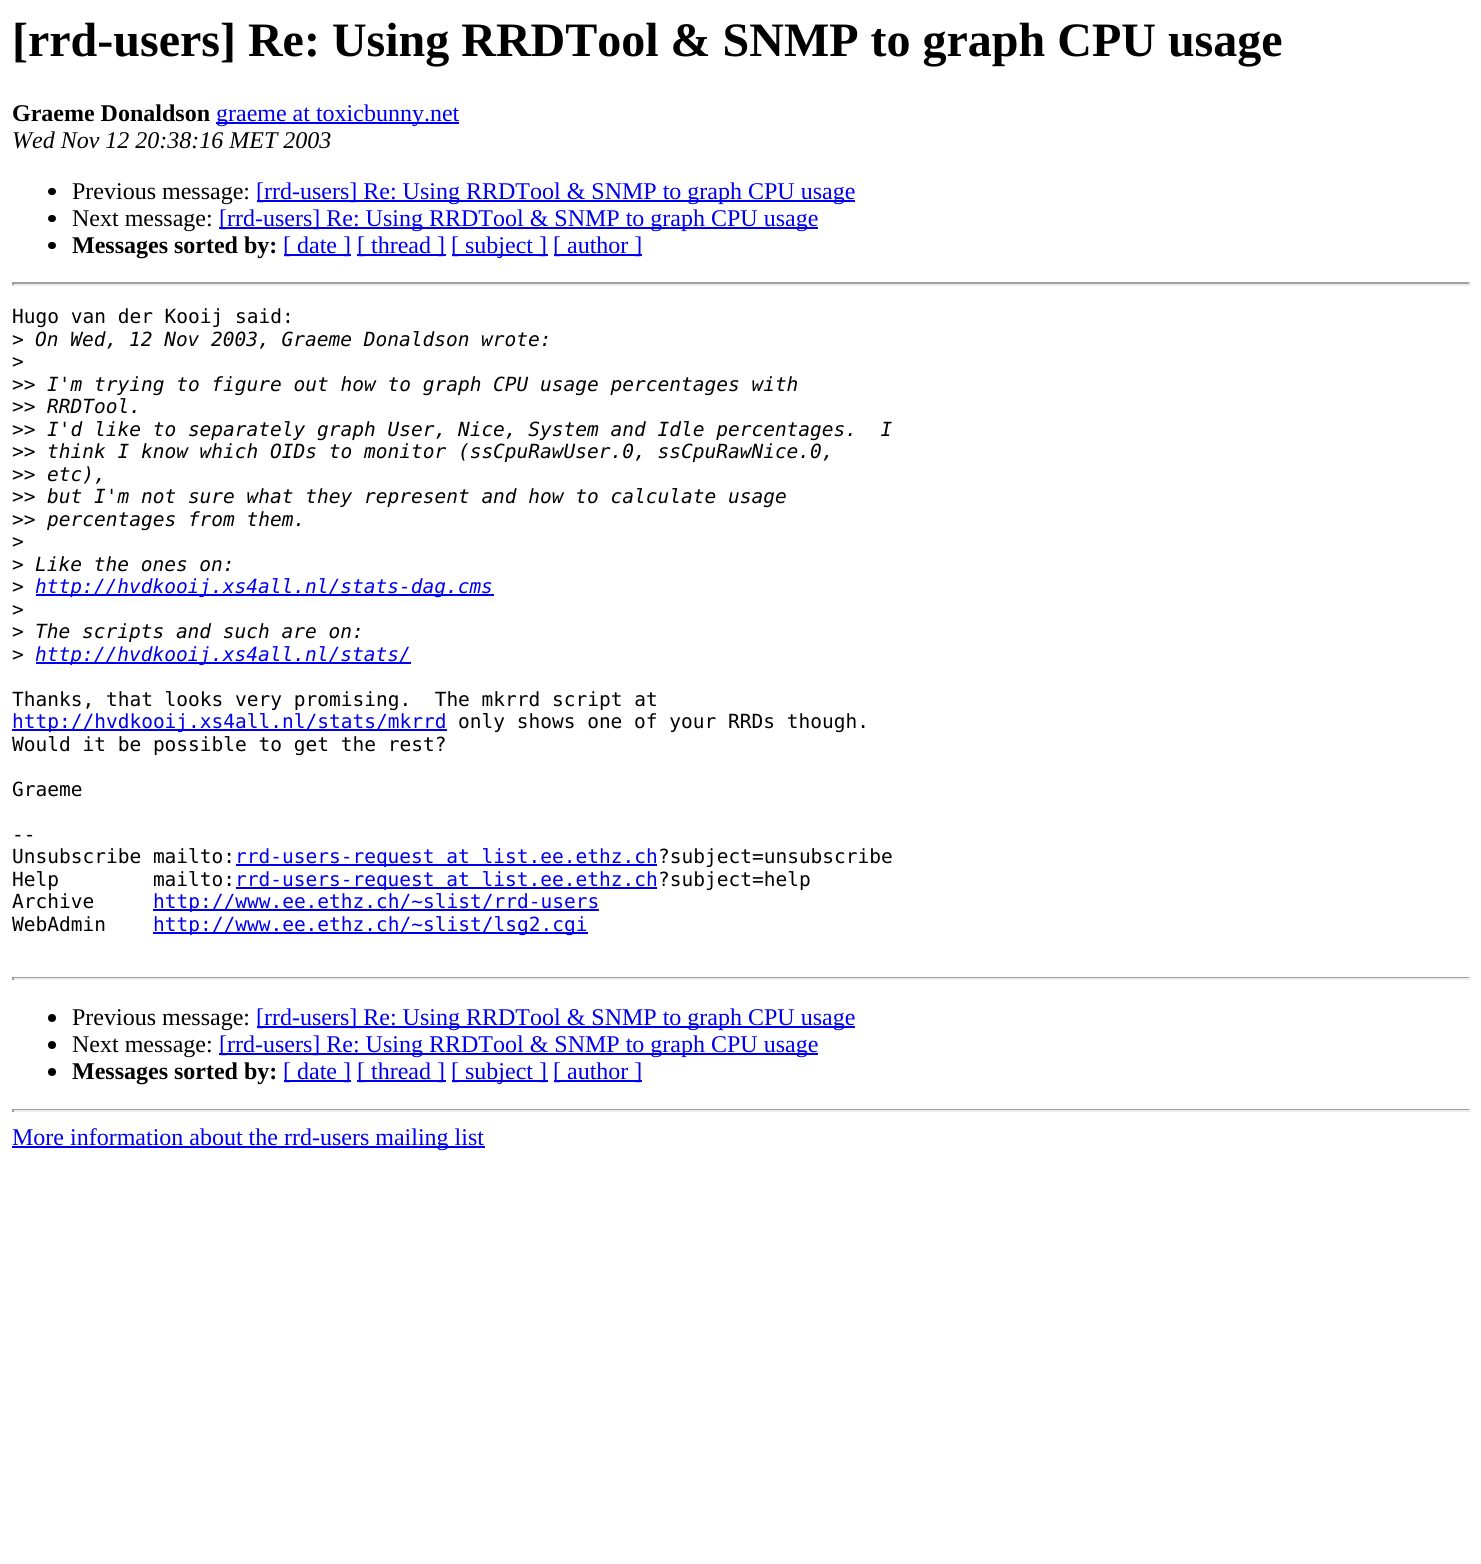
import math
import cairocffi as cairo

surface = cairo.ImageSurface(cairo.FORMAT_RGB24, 1481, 1564)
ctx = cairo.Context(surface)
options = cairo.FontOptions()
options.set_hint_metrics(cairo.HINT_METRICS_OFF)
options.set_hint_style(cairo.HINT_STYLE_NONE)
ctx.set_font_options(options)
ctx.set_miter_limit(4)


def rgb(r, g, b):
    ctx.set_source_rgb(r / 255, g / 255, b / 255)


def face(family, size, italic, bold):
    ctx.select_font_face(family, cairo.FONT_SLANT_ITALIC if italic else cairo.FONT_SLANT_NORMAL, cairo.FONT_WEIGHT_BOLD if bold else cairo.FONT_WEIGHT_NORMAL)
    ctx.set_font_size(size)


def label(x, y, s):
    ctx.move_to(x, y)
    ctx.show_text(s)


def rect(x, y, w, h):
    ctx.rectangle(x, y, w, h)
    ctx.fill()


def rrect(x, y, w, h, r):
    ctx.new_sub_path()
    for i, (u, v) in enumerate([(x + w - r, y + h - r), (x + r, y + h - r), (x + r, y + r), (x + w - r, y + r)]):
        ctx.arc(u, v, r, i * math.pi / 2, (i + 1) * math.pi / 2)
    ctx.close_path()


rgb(255, 255, 255)
ctx.paint()
face('Liberation Serif', 48, 0, 1)
rgb(0, 0, 0)
label(12, 56, '[rrd-users] Re: Using RRDTool & SNMP to graph CPU usage')
face('Liberation Serif', 24, 0, 1)
label(12, 121, 'Graeme Donaldson')
rgb(0, 0, 238)
rect(216, 122, 243, 2)
face('Liberation Serif', 24, 0, 0)
label(216, 121, 'graeme at toxicbunny.net')
face('Liberation Serif', 24, 1, 0)
rgb(0, 0, 0)
label(12, 148, 'Wed Nov 12 20:38:16 MET 2003')
rrect(48, 188, 8, 7, 3.5)
ctx.fill()
face('Liberation Serif', 24, 0, 0)
label(72, 199, 'Previous message:')
rgb(0, 0, 238)
rect(257, 200, 598, 2)
label(256, 199, '[rrd-users] Re: Using RRDTool & SNMP to graph CPU usage')
rgb(0, 0, 0)
rrect(48, 215, 8, 7, 3.5)
ctx.fill()
label(72, 226, 'Next message:')
rgb(0, 0, 238)
rect(219, 227, 599, 2)
label(219, 226, '[rrd-users] Re: Using RRDTool & SNMP to graph CPU usage')
rgb(0, 0, 0)
rrect(48, 242, 8, 7, 3.5)
ctx.fill()
face('Liberation Serif', 24, 0, 1)
label(72, 253, 'Messages sorted by:')
rgb(0, 0, 238)
rect(284, 254, 67, 2)
face('Liberation Serif', 24, 0, 0)
label(283, 253, '[ date ]')
rect(357, 254, 89, 2)
label(357, 253, '[ thread ]')
rect(452, 254, 96, 2)
label(451, 253, '[ subject ]')
rect(554, 254, 88, 2)
label(553, 253, '[ author ]')
rgb(159, 159, 159)
rect(12, 282, 1458, 2)
rgb(238, 238, 238)
rect(1469, 282, 2, 3)
rect(12, 284, 1458, 2)
rgb(159, 159, 159)
rect(12, 282, 2, 3)
face('DejaVu Sans Mono', 19.5, 0, 0)
rgb(0, 0, 0)
label(12, 323, 'Hugo van der Kooij said:')
label(12, 346, '>')
face('DejaVu Sans Mono', 19.5, 1, 0)
label(35, 346, 'On Wed, 12 Nov 2003, Graeme Donaldson wrote:')
face('DejaVu Sans Mono', 19.5, 0, 0)
label(12, 368, '>')
label(12, 391, '>>')
face('DejaVu Sans Mono', 19.5, 1, 0)
label(47, 391, 'I\'m trying to figure out how to graph CPU usage percentages with')
face('DejaVu Sans Mono', 19.5, 0, 0)
label(12, 413, '>>')
face('DejaVu Sans Mono', 19.5, 1, 0)
label(47, 413, 'RRDTool.')
face('DejaVu Sans Mono', 19.5, 0, 0)
label(12, 436, '>>')
face('DejaVu Sans Mono', 19.5, 1, 0)
label(47, 436, 'I\'d like to separately graph User, Nice, System and Idle percentages.  I')
face('DejaVu Sans Mono', 19.5, 0, 0)
label(12, 458, '>>')
face('DejaVu Sans Mono', 19.5, 1, 0)
label(47, 458, 'think I know which OIDs to monitor (ssCpuRawUser.0, ssCpuRawNice.0,')
face('DejaVu Sans Mono', 19.5, 0, 0)
label(12, 481, '>>')
face('DejaVu Sans Mono', 19.5, 1, 0)
label(47, 481, 'etc),')
face('DejaVu Sans Mono', 19.5, 0, 0)
label(12, 503, '>>')
face('DejaVu Sans Mono', 19.5, 1, 0)
label(47, 503, 'but I\'m not sure what they represent and how to calculate usage')
face('DejaVu Sans Mono', 19.5, 0, 0)
label(12, 526, '>>')
face('DejaVu Sans Mono', 19.5, 1, 0)
label(47, 526, 'percentages from them.')
face('DejaVu Sans Mono', 19.5, 0, 0)
label(12, 548, '>')
label(12, 571, '>')
face('DejaVu Sans Mono', 19.5, 1, 0)
label(35, 571, 'Like the ones on:')
face('DejaVu Sans Mono', 19.5, 0, 0)
label(12, 593, '>')
rgb(0, 0, 238)
rect(36, 594, 458, 2)
face('DejaVu Sans Mono', 19.5, 1, 0)
label(35, 593, 'http://hvdkooij.xs4all.nl/stats-dag.cms')
face('DejaVu Sans Mono', 19.5, 0, 0)
rgb(0, 0, 0)
label(12, 616, '>')
label(12, 638, '>')
face('DejaVu Sans Mono', 19.5, 1, 0)
label(35, 638, 'The scripts and such are on:')
face('DejaVu Sans Mono', 19.5, 0, 0)
label(12, 661, '>')
rgb(0, 0, 238)
rect(36, 662, 375, 2)
face('DejaVu Sans Mono', 19.5, 1, 0)
label(35, 661, 'http://hvdkooij.xs4all.nl/stats/')
face('DejaVu Sans Mono', 19.5, 0, 0)
rgb(0, 0, 0)
label(12, 706, 'Thanks, that looks very promising.  The mkrrd script at')
rgb(0, 0, 238)
rect(12, 729, 435, 2)
label(12, 728, 'http://hvdkooij.xs4all.nl/stats/mkrrd')
rgb(0, 0, 0)
label(458, 728, 'only shows one of your RRDs though.')
label(12, 751, 'Would it be possible to get the rest?')
label(12, 796, 'Graeme')
label(12, 841, '--')
label(12, 863, 'Unsubscribe mailto:')
rgb(0, 0, 238)
rect(236, 864, 421, 2)
label(235, 863, 'rrd-users-request at list.ee.ethz.ch')
rgb(0, 0, 0)
label(658, 863, '?subject=unsubscribe')
label(12, 886, 'Help        mailto:')
rgb(0, 0, 238)
rect(236, 887, 421, 2)
label(235, 886, 'rrd-users-request at list.ee.ethz.ch')
rgb(0, 0, 0)
label(658, 886, '?subject=help')
label(12, 908, 'Archive')
rgb(0, 0, 238)
rect(153, 909, 446, 2)
label(153, 908, 'http://www.ee.ethz.ch/~slist/rrd-users')
rgb(0, 0, 0)
label(12, 931, 'WebAdmin')
rgb(0, 0, 238)
rect(153, 932, 435, 2)
label(153, 931, 'http://www.ee.ethz.ch/~slist/lsg2.cgi')
rgb(159, 159, 159)
rect(12, 977, 1458, 1)
rgb(238, 238, 238)
rect(1469, 977, 2, 3)
rect(12, 978, 1458, 2)
rgb(159, 159, 159)
rect(12, 977, 2, 3)
rgb(0, 0, 0)
ctx.new_path()
ctx.arc(52, 1018, 4, 0, 2 * math.pi)
ctx.fill()
face('Liberation Serif', 24, 0, 0)
label(72, 1025, 'Previous message:')
rgb(0, 0, 238)
rect(257, 1026, 598, 2)
label(256, 1025, '[rrd-users] Re: Using RRDTool & SNMP to graph CPU usage')
rgb(0, 0, 0)
ctx.new_path()
ctx.arc(52, 1045, 4, 0, 2 * math.pi)
ctx.fill()
label(72, 1052, 'Next message:')
rgb(0, 0, 238)
rect(219, 1053, 599, 2)
label(219, 1052, '[rrd-users] Re: Using RRDTool & SNMP to graph CPU usage')
rgb(0, 0, 0)
ctx.new_path()
ctx.arc(52, 1072, 4, 0, 2 * math.pi)
ctx.fill()
face('Liberation Serif', 24, 0, 1)
label(72, 1079, 'Messages sorted by:')
rgb(0, 0, 238)
rect(284, 1080, 67, 2)
face('Liberation Serif', 24, 0, 0)
label(283, 1079, '[ date ]')
rect(357, 1080, 89, 2)
label(357, 1079, '[ thread ]')
rect(452, 1080, 96, 2)
label(451, 1079, '[ subject ]')
rect(554, 1080, 88, 2)
label(553, 1079, '[ author ]')
rgb(159, 159, 159)
rect(12, 1109, 1458, 1)
rgb(238, 238, 238)
rect(1469, 1109, 2, 3)
rect(12, 1110, 1458, 2)
rgb(159, 159, 159)
rect(12, 1109, 2, 3)
rgb(0, 0, 238)
rect(12, 1146, 473, 2)
label(12, 1145, 'More information about the rrd-users mailing list')
surface.write_to_png('render.png')
